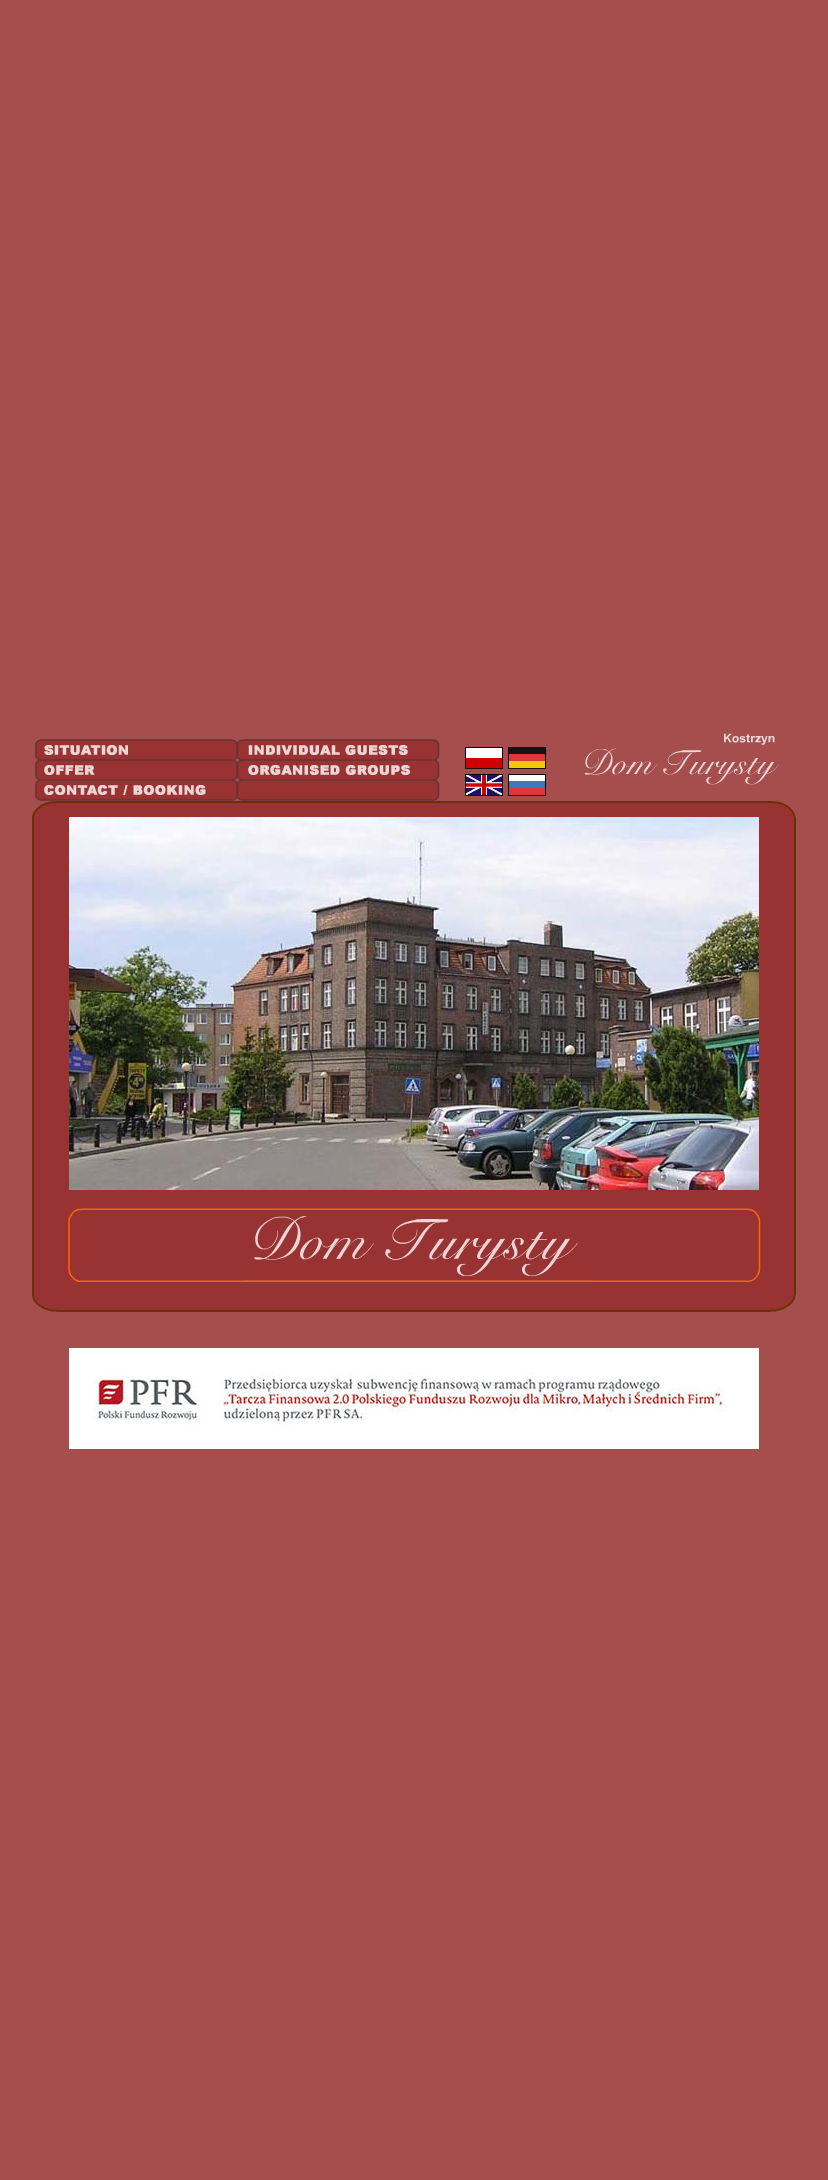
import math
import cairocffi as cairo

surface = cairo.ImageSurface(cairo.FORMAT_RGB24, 828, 2180)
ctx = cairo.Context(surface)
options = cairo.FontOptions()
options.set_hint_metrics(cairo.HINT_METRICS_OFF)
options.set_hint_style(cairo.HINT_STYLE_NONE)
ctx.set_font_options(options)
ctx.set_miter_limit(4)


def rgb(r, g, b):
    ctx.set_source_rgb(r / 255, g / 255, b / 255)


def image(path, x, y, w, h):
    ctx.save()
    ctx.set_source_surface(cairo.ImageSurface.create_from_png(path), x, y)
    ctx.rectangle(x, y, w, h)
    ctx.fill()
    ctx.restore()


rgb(166, 77, 77)
ctx.paint()
image('image0.png', 35, 739, 202, 21)
image('image1.png', 237, 739, 203, 21)
image('image2.png', 584, 732, 195, 54)
image('image3.png', 465, 747, 38, 22)
image('image4.png', 508, 747, 38, 22)
image('image5.png', 465, 774, 38, 22)
image('image6.png', 508, 774, 38, 22)
image('image7.png', 35, 760, 202, 20)
image('image8.png', 237, 760, 203, 20)
image('image9.png', 35, 780, 202, 19)
image('image10.png', 237, 780, 203, 19)
image('image11.png', 32, 799, 764, 18)
image('image12.png', 32, 817, 764, 478)
image('image13.png', 69, 817, 690, 373)
image('image14.png', 68, 1208, 693, 74)
image('image15.png', 32, 1295, 764, 17)
image('image16.png', 69, 1348, 690, 101)
surface.write_to_png('render.png')
